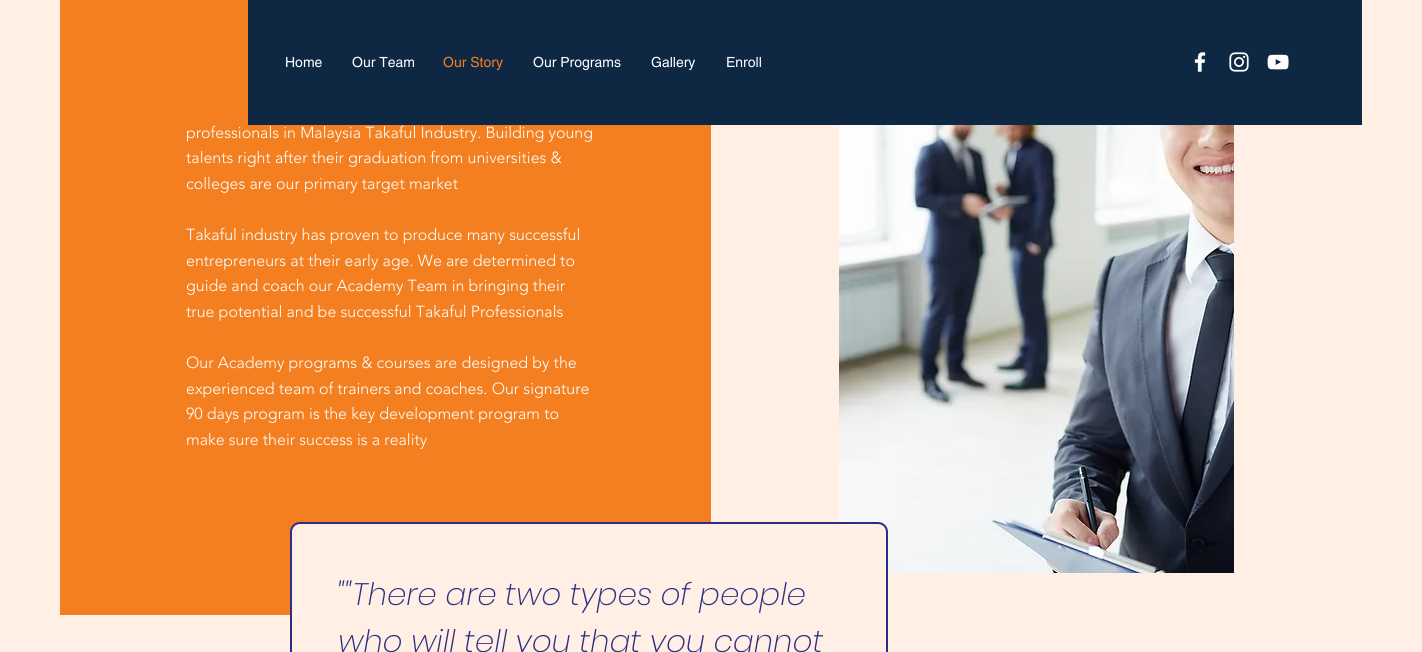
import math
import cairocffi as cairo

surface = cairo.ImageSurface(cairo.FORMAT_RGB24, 1422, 652)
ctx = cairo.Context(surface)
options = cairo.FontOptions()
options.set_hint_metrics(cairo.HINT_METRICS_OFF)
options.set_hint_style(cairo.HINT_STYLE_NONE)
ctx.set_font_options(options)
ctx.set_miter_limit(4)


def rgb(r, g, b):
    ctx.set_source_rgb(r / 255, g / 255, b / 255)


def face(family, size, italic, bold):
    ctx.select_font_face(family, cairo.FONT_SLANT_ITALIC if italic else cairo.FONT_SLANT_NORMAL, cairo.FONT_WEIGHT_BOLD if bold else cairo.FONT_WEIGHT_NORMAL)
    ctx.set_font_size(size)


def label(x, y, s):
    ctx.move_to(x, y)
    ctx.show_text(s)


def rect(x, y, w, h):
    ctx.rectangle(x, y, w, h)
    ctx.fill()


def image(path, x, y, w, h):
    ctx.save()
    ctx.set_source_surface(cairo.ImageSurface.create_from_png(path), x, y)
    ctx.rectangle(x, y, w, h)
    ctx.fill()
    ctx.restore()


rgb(255, 239, 228)
ctx.paint()
rgb(14, 40, 68)
rect(248, 0, 1114, 125)
rgb(244, 127, 32)
rect(60, 0, 188, 125)
face('helvetica', 14, 0, 0)
rgb(255, 255, 255)
label(285, 67, 'Home')
label(352, 67, 'Our Team')
rgb(244, 127, 32)
label(443, 67, 'Our Story')
rgb(255, 255, 255)
label(533, 67, 'Our Programs')
label(651, 67, 'Gallery')
label(726, 67, 'Enroll')
image('image0.png', 1194, 52, 12, 20)
image('image1.png', 1229, 52, 20, 20)
image('image2.png', 1267, 54, 22, 16)
rgb(244, 127, 32)
rect(60, 125, 651, 490)
face('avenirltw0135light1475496 Light', 16, 0, 0)
rgb(255, 255, 255)
label(186, 138, 'professionals in Malaysia Takaful Industry. Building young')
label(186, 163, 'talents right after their graduation from universities &')
label(186, 189, 'colleges are our primary target market')
label(186, 240, 'Takaful industry has proven to produce many successful')
label(186, 266, 'entrepreneurs at their early age. We are determined to')
label(186, 291, 'guide and coach our Academy Team in bringing their')
label(186, 317, 'true potential and be successful Takaful Professionals')
label(186, 368, 'Our Academy programs & courses are designed by the')
label(186, 394, 'experienced team of trainers and coaches. Our signature')
label(186, 419, '90 days program is the key development program to')
label(186, 445, 'make sure their success is a reality')
image('image3.png', 839, 125, 395, 448)
rgb(255, 239, 228)
ctx.new_path()
ctx.move_to(300, 523)
ctx.line_to(878, 523)
ctx.curve_to(883, 523, 887, 527, 887, 532)
ctx.line_to(887, 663)
ctx.line_to(291, 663)
ctx.line_to(291, 532)
ctx.curve_to(291, 527, 295, 523, 300, 523)
ctx.close_path()
ctx.fill_preserve()
rgb(43, 46, 131)
ctx.stroke()
face('Poppins ExtraLight', 31, 1, 0)
label(338, 605, '""There are two types of people')
label(338, 652, 'who will tell you that you cannot')
surface.write_to_png('render.png')
